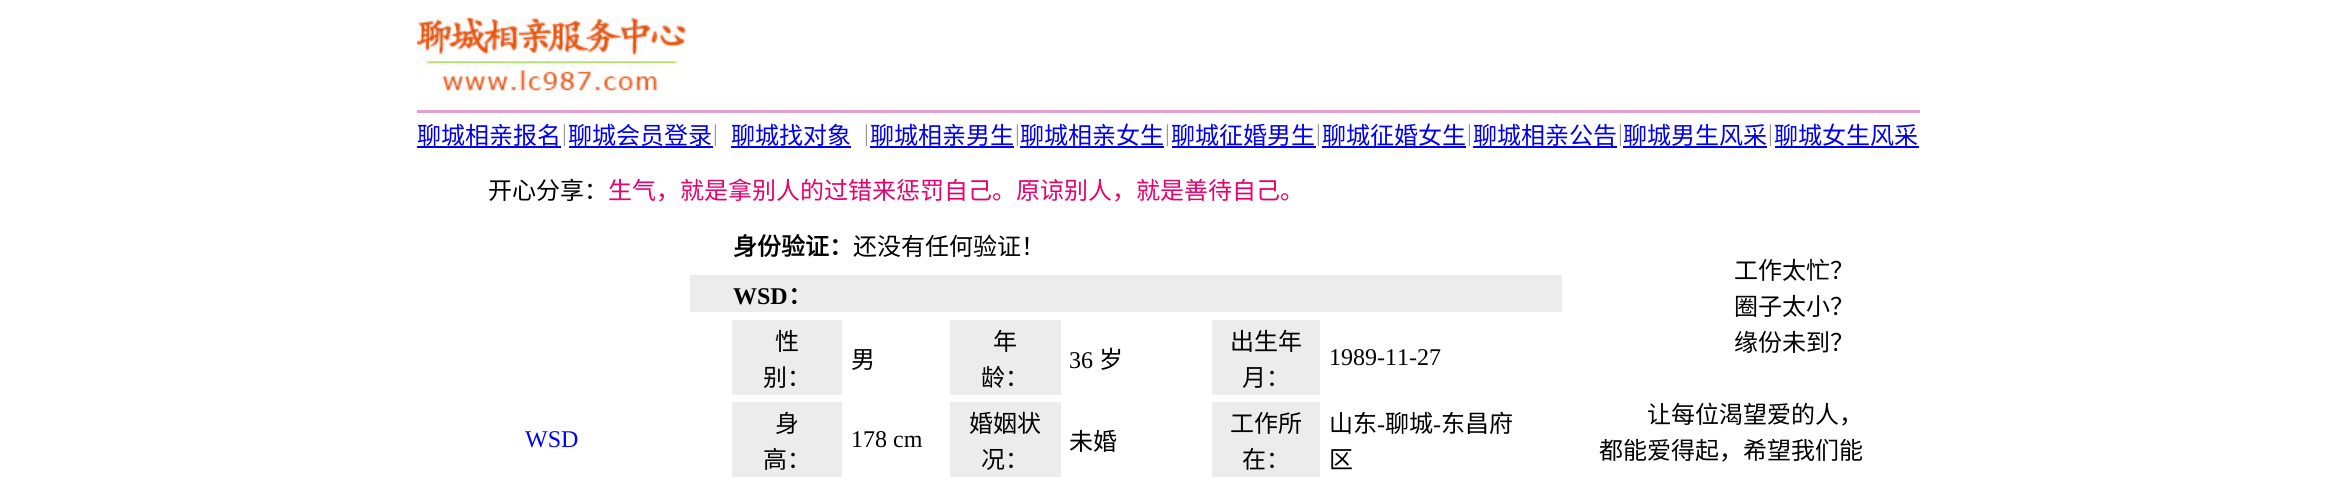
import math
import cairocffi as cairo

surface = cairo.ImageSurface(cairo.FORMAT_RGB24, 2335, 481)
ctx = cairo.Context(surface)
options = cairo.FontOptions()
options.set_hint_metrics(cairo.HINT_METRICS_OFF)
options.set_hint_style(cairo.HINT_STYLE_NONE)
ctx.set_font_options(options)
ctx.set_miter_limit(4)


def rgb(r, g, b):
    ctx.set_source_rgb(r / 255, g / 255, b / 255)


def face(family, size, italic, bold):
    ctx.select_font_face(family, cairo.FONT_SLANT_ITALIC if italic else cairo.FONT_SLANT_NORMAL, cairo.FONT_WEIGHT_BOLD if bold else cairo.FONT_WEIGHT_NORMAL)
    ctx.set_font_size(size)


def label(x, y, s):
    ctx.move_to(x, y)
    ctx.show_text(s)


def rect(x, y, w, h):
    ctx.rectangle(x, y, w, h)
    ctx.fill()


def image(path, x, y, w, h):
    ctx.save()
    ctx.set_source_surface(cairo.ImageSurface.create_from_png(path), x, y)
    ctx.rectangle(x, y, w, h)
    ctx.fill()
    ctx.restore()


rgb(255, 255, 255)
ctx.paint()
image('image0.png', 417, 16, 270, 85)
rgb(225, 162, 209)
rect(417, 110, 1503, 3)
face('Noto Sans CJK SC', 24, 0, 0)
rgb(0, 0, 238)
label(417, 144, '聊城相亲报名')
rect(417, 146, 144, 2)
face('Liberation Serif', 24, 0, 0)
rgb(152, 152, 152)
label(562, 141, '|')
face('Noto Sans CJK SC', 24, 0, 0)
rgb(0, 0, 238)
label(568, 144, '聊城会员登录')
rect(569, 146, 144, 2)
face('Liberation Serif', 24, 0, 0)
rgb(152, 152, 152)
label(713, 141, '|')
face('Noto Sans CJK SC', 24, 0, 0)
rgb(0, 0, 238)
label(731, 144, '聊城找对象')
rect(731, 146, 120, 2)
face('Liberation Serif', 24, 0, 0)
rgb(152, 152, 152)
label(864, 141, '|')
face('Noto Sans CJK SC', 24, 0, 0)
rgb(0, 0, 238)
label(870, 144, '聊城相亲男生')
rect(870, 146, 144, 2)
face('Liberation Serif', 24, 0, 0)
rgb(152, 152, 152)
label(1015, 141, '|')
face('Noto Sans CJK SC', 24, 0, 0)
rgb(0, 0, 238)
label(1020, 144, '聊城相亲女生')
rect(1020, 146, 144, 2)
face('Liberation Serif', 24, 0, 0)
rgb(152, 152, 152)
label(1165, 141, '|')
face('Noto Sans CJK SC', 24, 0, 0)
rgb(0, 0, 238)
label(1171, 144, '聊城征婚男生')
rect(1172, 146, 144, 2)
face('Liberation Serif', 24, 0, 0)
rgb(152, 152, 152)
label(1316, 141, '|')
face('Noto Sans CJK SC', 24, 0, 0)
rgb(0, 0, 238)
label(1322, 144, '聊城征婚女生')
rect(1322, 146, 144, 2)
face('Liberation Serif', 24, 0, 0)
rgb(152, 152, 152)
label(1467, 141, '|')
rgb(0, 0, 238)
rect(1473, 146, 144, 2)
face('Noto Sans CJK SC', 24, 0, 0)
label(1473, 144, '聊城相亲公告')
face('Liberation Serif', 24, 0, 0)
rgb(152, 152, 152)
label(1618, 141, '|')
face('Noto Sans CJK SC', 24, 0, 0)
rgb(0, 0, 238)
label(1623, 144, '聊城男生风采')
rect(1623, 146, 144, 2)
face('Liberation Serif', 24, 0, 0)
rgb(152, 152, 152)
label(1768, 141, '|')
face('Noto Sans CJK SC', 24, 0, 0)
rgb(0, 0, 238)
label(1774, 144, '聊城女生风采')
rect(1775, 146, 144, 2)
rgb(0, 0, 0)
label(488, 199, '开心分享：')
rgb(232, 0, 109)
label(608, 199, '生气，就是拿别人的过错来惩罚自己。原谅别人，就是善待自己。')
rgb(0, 0, 0)
label(1734, 279, '工作太忙？')
label(1734, 315, '圈子太小？')
label(1734, 351, '缘份未到？')
label(1647, 423, '让每位渴望爱的人，')
label(1599, 459, '都能爱得起，希望我们能')
face('Liberation Serif', 24, 0, 0)
rgb(0, 0, 255)
label(525, 447, 'WSD')
face('Noto Sans CJK SC', 24, 0, 1)
rgb(0, 0, 0)
label(733, 255, '身份验证：')
face('Noto Sans CJK SC', 24, 0, 0)
label(853, 255, '还没有任何验证！')
rgb(236, 236, 236)
rect(690, 275, 872, 37)
face('Liberation Serif', 24, 0, 1)
rgb(0, 0, 0)
label(733, 304, 'WSD')
face('Noto Sans CJK SC', 24, 0, 1)
label(788, 304, '：')
rgb(236, 236, 236)
rect(732, 320, 110, 75)
face('Noto Sans CJK SC', 24, 0, 0)
rgb(0, 0, 0)
label(775, 350, '性')
label(763, 386, '别：')
label(851, 368, '男')
rgb(236, 236, 236)
rect(950, 320, 111, 75)
rgb(0, 0, 0)
label(993, 350, '年')
label(981, 386, '龄：')
face('Liberation Serif', 24, 0, 0)
label(1069, 368, '36')
face('Noto Sans CJK SC', 24, 0, 0)
label(1099, 368, '岁')
rgb(236, 236, 236)
rect(1212, 320, 108, 75)
rgb(0, 0, 0)
label(1230, 350, '出生年')
label(1242, 386, '月：')
face('Liberation Serif', 24, 0, 0)
label(1329, 365, '1989-11-27')
rgb(236, 236, 236)
rect(732, 402, 110, 75)
face('Noto Sans CJK SC', 24, 0, 0)
rgb(0, 0, 0)
label(775, 432, '身')
label(763, 468, '高：')
face('Liberation Serif', 24, 0, 0)
label(851, 447, '178 cm')
rgb(236, 236, 236)
rect(950, 402, 111, 75)
face('Noto Sans CJK SC', 24, 0, 0)
rgb(0, 0, 0)
label(969, 432, '婚姻状')
label(981, 468, '况：')
label(1069, 450, '未婚')
rgb(236, 236, 236)
rect(1212, 402, 108, 75)
rgb(0, 0, 0)
label(1230, 432, '工作所')
label(1242, 468, '在：')
label(1329, 432, '山东')
face('Liberation Serif', 24, 0, 0)
label(1377, 432, '-')
face('Noto Sans CJK SC', 24, 0, 0)
label(1385, 432, '聊城')
face('Liberation Serif', 24, 0, 0)
label(1433, 432, '-')
face('Noto Sans CJK SC', 24, 0, 0)
label(1441, 432, '东昌府')
label(1329, 468, '区')
surface.write_to_png('render.png')
